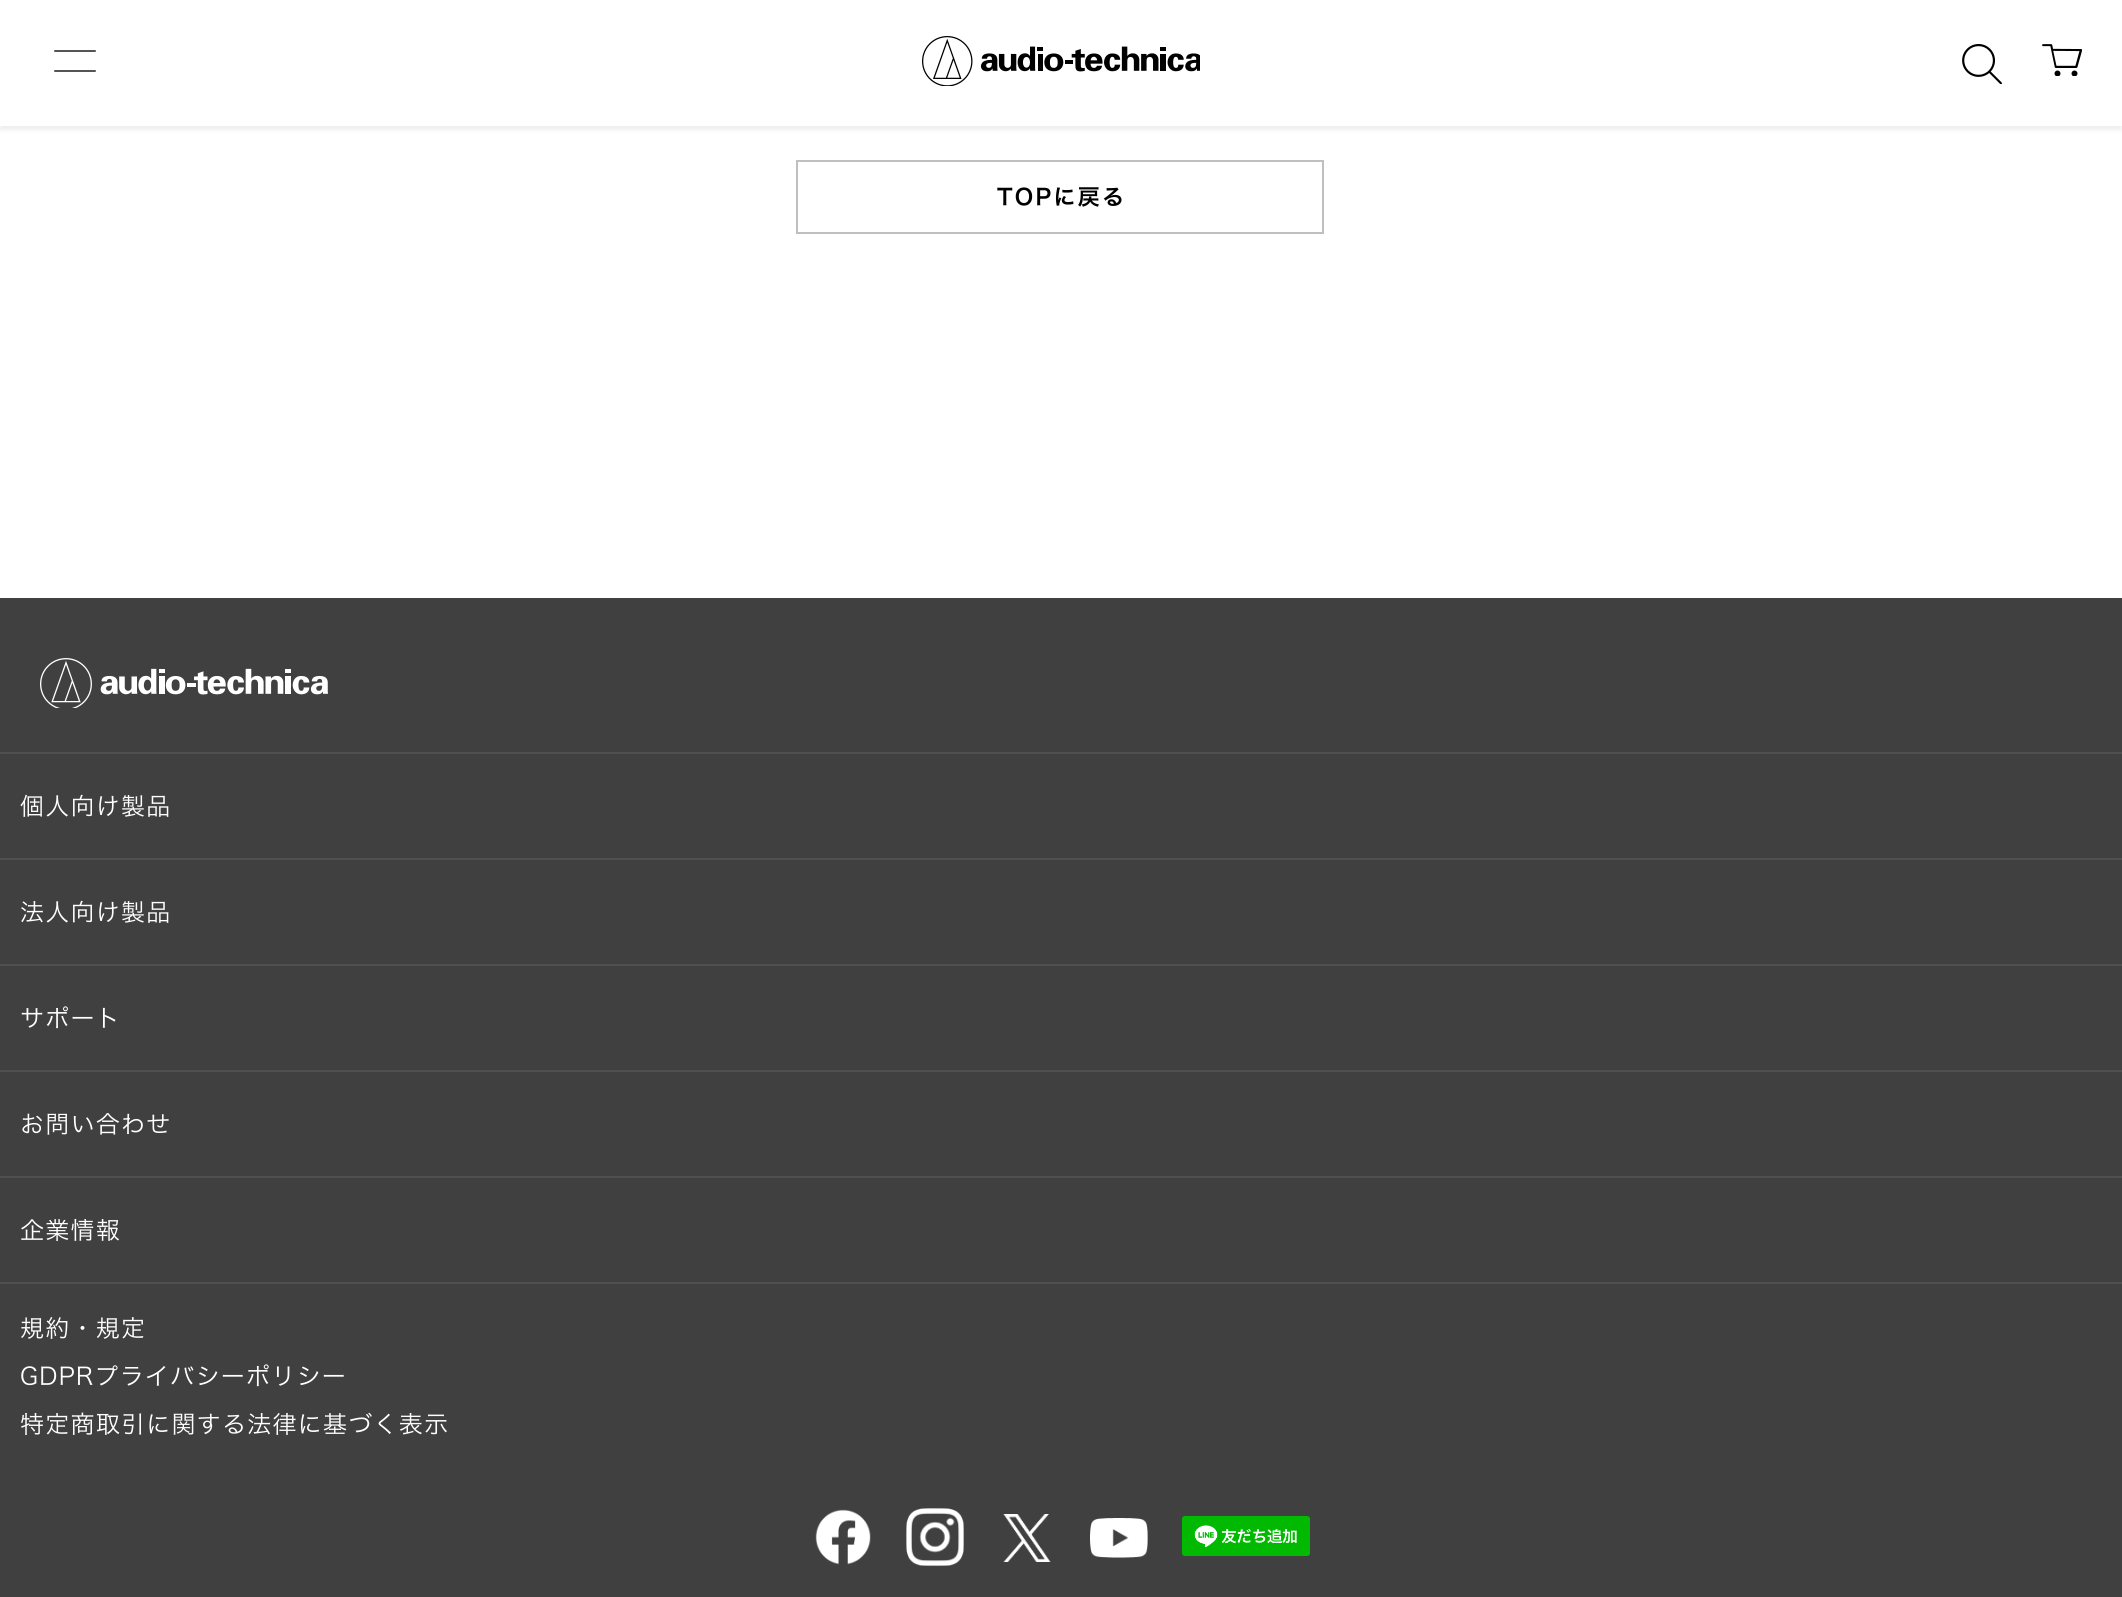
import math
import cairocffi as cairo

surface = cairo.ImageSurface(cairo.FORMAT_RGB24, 2122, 1597)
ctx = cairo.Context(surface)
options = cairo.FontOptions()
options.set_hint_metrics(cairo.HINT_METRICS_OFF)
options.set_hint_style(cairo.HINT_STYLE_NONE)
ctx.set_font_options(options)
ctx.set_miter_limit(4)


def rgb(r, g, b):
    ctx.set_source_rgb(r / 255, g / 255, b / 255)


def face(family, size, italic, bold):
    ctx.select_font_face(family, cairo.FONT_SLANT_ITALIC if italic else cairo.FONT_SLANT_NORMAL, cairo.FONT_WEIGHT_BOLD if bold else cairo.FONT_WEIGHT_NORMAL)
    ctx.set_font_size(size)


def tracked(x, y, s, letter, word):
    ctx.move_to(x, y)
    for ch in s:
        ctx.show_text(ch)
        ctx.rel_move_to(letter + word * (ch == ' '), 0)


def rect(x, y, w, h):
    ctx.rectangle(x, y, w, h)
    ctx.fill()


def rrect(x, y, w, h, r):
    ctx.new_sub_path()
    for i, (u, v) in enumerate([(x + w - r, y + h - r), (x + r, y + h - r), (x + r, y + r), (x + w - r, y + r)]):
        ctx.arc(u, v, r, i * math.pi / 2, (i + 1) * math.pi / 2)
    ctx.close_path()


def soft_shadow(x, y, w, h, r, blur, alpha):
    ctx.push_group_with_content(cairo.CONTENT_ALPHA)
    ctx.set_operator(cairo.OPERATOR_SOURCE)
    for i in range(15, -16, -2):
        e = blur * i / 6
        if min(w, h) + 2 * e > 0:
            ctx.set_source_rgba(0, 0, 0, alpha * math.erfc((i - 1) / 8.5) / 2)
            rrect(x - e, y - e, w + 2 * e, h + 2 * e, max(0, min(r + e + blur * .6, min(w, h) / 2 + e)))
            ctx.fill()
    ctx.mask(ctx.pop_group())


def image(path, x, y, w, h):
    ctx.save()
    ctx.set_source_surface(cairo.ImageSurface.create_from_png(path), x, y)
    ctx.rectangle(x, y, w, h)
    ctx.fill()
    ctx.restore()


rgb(255, 255, 255)
ctx.paint()
ctx.save()
ctx.rectangle(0, 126, 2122, 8)
ctx.clip()
rgb(238, 238, 238)
soft_shadow(0, 4, 2122, 126, 0, 2, 1)
ctx.restore()
image('image0.png', 922, 36, 278, 50)
rgb(85, 85, 85)
rrect(54, 50, 42, 2, 1)
ctx.fill()
rrect(54, 70, 42, 2, 1)
ctx.fill()
image('image1.png', 1962, 44, 40, 40)
image('image2.png', 2042, 44, 40, 32)
ctx.rectangle(797, 161, 526, 72)
rgb(191, 191, 191)
ctx.stroke()
face('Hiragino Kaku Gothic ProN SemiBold', 22, 0, 0)
rgb(0, 0, 0)
tracked(997, 205, 'TOPに戻る', 2.25, 0)
rgb(64, 64, 64)
rect(0, 598, 2122, 999)
image('image3.png', 40, 658, 288, 50)
rgb(80, 80, 80)
rect(0, 752, 2122, 2)
face('Hiragino Kaku Gothic ProN Light', 24, 0, 0)
rgb(255, 255, 255)
tracked(20, 815, '個人向け製品', 1.25, 0)
rgb(80, 80, 80)
rect(0, 858, 2122, 2)
rgb(255, 255, 255)
tracked(20, 921, '法人向け製品', 1.25, 0)
rgb(80, 80, 80)
rect(0, 964, 2122, 2)
rgb(255, 255, 255)
tracked(20, 1027, 'サポート', 1.25, 0)
rgb(80, 80, 80)
rect(0, 1070, 2122, 2)
rgb(255, 255, 255)
tracked(20, 1133, 'お問い合わせ', 1.25, 0)
rgb(80, 80, 80)
rect(0, 1176, 2122, 2)
rect(0, 1282, 2122, 2)
rgb(255, 255, 255)
tracked(20, 1239, '企業情報', 1.25, 0)
tracked(20, 1337, '規約・規定', 1.25, 0)
tracked(20, 1385, 'GDPRプライバシーポリシー', 1.25, 0)
tracked(20, 1433, '特定商取引に関する法律に基づく表示', 1.25, 0)
image('image4.png', 815, 1509, 56, 56)
image('image5.png', 906, 1508, 58, 58)
image('image6.png', 1003, 1514, 48, 48)
image('image7.png', 1090, 1518, 58, 40)
image('image8.png', 1182, 1516, 128, 40)
surface.write_to_png('render.png')
